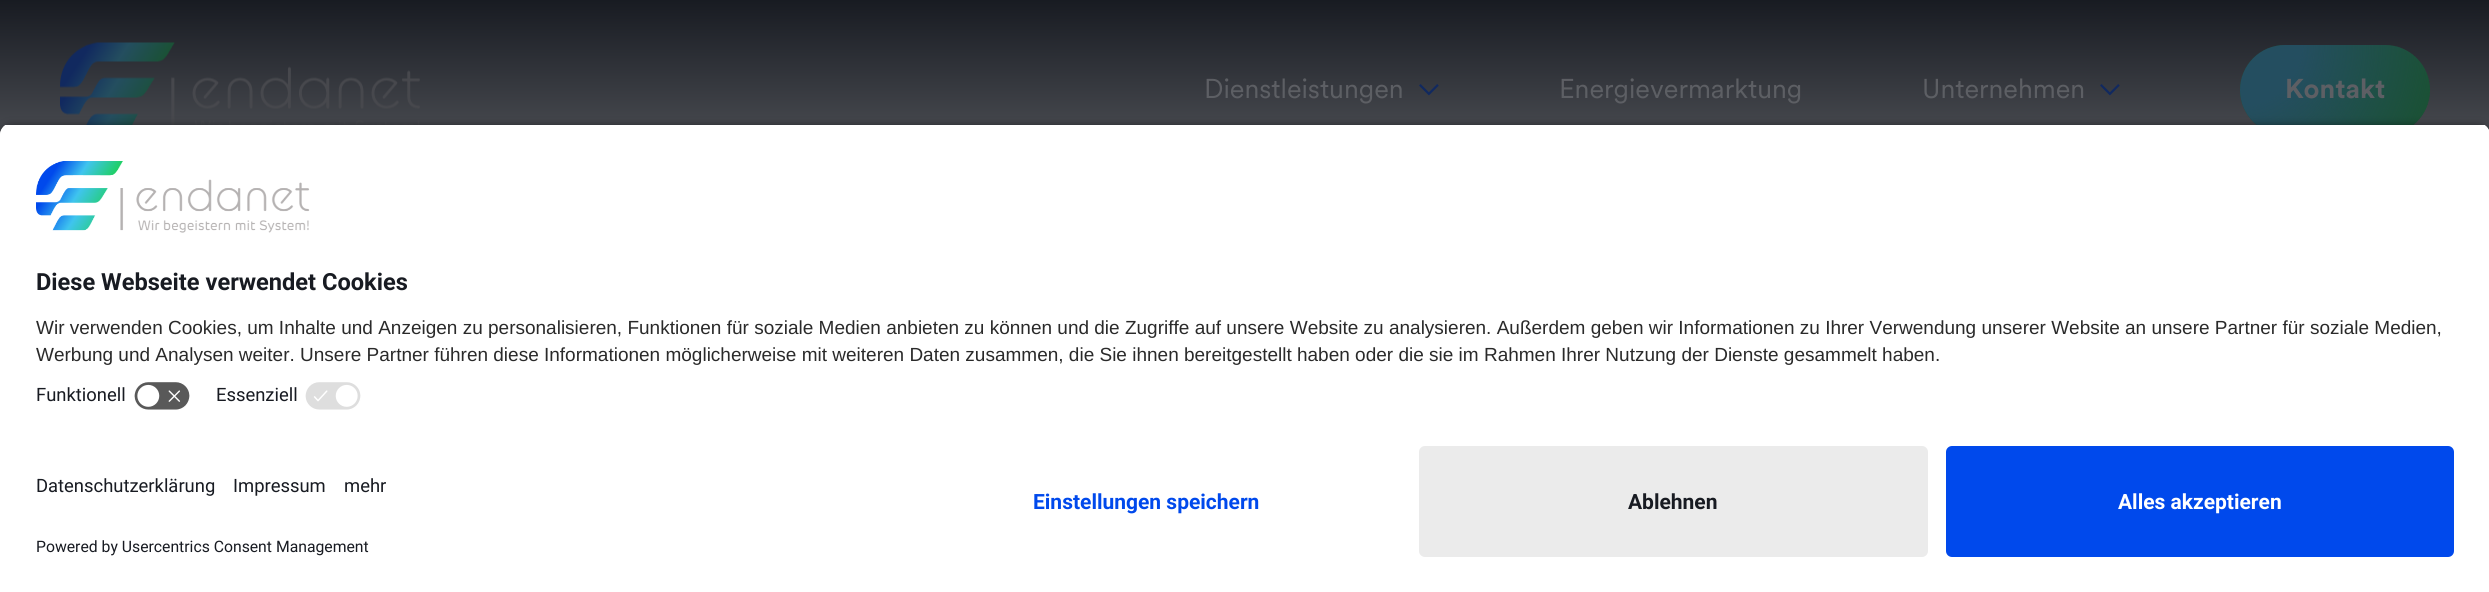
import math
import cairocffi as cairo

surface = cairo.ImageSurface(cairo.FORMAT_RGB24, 2489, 592)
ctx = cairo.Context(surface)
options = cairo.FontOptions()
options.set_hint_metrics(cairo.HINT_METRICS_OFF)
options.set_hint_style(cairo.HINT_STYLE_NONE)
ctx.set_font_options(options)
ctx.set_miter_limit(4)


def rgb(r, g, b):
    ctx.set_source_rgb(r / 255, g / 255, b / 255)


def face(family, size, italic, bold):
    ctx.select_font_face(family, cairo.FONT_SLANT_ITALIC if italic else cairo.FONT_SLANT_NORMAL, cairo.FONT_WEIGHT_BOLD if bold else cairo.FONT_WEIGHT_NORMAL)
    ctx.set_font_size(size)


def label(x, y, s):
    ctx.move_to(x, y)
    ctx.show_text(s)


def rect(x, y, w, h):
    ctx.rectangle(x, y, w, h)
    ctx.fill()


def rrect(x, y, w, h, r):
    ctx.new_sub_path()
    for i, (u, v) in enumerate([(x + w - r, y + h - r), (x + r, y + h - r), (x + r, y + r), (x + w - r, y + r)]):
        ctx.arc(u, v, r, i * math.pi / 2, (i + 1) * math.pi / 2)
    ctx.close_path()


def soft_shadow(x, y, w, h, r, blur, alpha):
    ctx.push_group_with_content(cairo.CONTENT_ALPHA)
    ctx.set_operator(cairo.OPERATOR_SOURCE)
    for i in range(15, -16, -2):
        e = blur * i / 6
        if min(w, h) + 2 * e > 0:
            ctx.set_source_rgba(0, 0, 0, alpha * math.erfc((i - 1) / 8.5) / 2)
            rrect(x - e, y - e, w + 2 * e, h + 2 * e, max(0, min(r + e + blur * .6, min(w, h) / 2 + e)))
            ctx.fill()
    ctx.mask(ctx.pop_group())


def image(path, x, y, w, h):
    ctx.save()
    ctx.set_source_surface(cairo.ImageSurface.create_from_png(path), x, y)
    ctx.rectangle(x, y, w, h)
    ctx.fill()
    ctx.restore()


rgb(255, 255, 255)
ctx.paint()
gradient = cairo.LinearGradient(1245, 179, 1245, 0)
gradient.add_color_stop_rgba(0, 0.341, 0.349, 0.369, 1)
gradient.add_color_stop_rgba(1, 0.094, 0.106, 0.133, 1)
ctx.set_source(gradient)
rect(0, 0, 2489, 135)
image('image0.png', 60, 42, 360, 83)
face('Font', 27, 0, 0)
rgb(93, 95, 100)
label(1204, 98, 'Dienstleistungen')
image('image1.png', 1419, 84, 20, 12)
label(1559, 98, 'Energievermarktung')
label(1922, 98, 'Unternehmen')
image('image1.png', 2100, 84, 20, 12)
gradient = cairo.RadialGradient(2430, 405, 0, 2430, 405, 407)
gradient.add_color_stop_rgba(0.25, 0.09, 0.271, 0.176, 1)
gradient.add_color_stop_rgba(1, 0.09, 0.271, 0.176, 0)
ctx.set_source(gradient)
rrect(2240, 45, 190, 90, 45)
ctx.fill()
gradient = cairo.RadialGradient(2430, 45, 0, 2430, 45, 407)
gradient.add_color_stop_rgba(0.25, 0.102, 0.318, 0.2, 1)
gradient.add_color_stop_rgba(1, 0.102, 0.318, 0.2, 0)
ctx.set_source(gradient)
rrect(2240, 45, 190, 90, 45)
ctx.fill()
gradient = cairo.RadialGradient(2240, 45, 0, 2240, 45, 407)
gradient.add_color_stop_rgba(0.15, 0.141, 0.306, 0.376, 1)
gradient.add_color_stop_rgba(0.5, 0.141, 0.306, 0.376, 0)
ctx.set_source(gradient)
rrect(2240, 45, 190, 90, 45)
ctx.fill()
face('Font', 27, 0, 1)
rgb(93, 95, 100)
label(2285, 98, 'Kontakt')
rgb(0, 0, 0)
soft_shadow(0, 128, 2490, 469, 12, 5, 0.8)
ctx.save()
ctx.new_path()
ctx.move_to(12, 123)
ctx.line_to(2478, 123)
ctx.curve_to(2484.5, 123, 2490, 128.5, 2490, 135)
ctx.line_to(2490, 434)
ctx.line_to(0, 434)
ctx.line_to(0, 135)
ctx.curve_to(0, 128.5, 5.5, 123, 12, 123)
ctx.close_path()
ctx.clip()
rgb(255, 255, 255)
rect(0, 125, 2489, 309)
rect(0, 125, 2489, 249)
ctx.restore()
image('image2.png', 36, 161, 274, 72)
face('Roboto', 23.6, 0, 1)
rgb(24, 27, 34)
label(36, 290, 'Diese Webseite verwendet Cookies')
face('Liberation Sans', 19, 0, 0)
rgb(42, 42, 42)
label(36, 334, 'Wir verwenden Cookies, um Inhalte und Anzeigen zu personalisieren, Funktionen für soziale Medien anbieten zu können und die Zugriffe auf unsere Website zu analysieren. Außerdem geben wir Informationen zu Ihrer Verwendung unserer Website an unsere Partner für soziale Medien,')
label(36, 361, 'Werbung und Analysen weiter. Unsere Partner führen diese Informationen möglicherweise mit weiteren Daten zusammen, die Sie ihnen bereitgestellt haben oder die sie im Rahmen Ihrer Nutzung der Dienste gesammelt haben.')
face('Roboto', 18.4, 0, 0)
rgb(24, 27, 34)
label(36, 401, 'Funktionell')
image('image3.png', 134, 382, 56, 28)
label(216, 401, 'Essenziell')
image('image4.png', 305, 382, 56, 28)
rgb(255, 255, 255)
rect(0, 434, 2489, 158)
rgb(24, 27, 34)
label(36, 492, 'Datenschutzerklärung')
label(233, 492, 'Impressum')
label(344, 492, 'mehr')
face('Roboto', 15.75, 0, 0)
label(36, 552, 'Powered by Usercentrics Consent Management')
face('Roboto', 21, 0, 1)
rgb(0, 73, 236)
label(1033, 509, 'Einstellungen speichern')
rgb(235, 235, 235)
rrect(1419, 446, 509, 111, 6)
ctx.fill()
rgb(24, 27, 34)
label(1628, 509, 'Ablehnen')
rgb(0, 73, 236)
rrect(1946, 446, 508, 111, 6)
ctx.fill()
rgb(255, 255, 255)
label(2118, 509, 'Alles akzeptieren')
surface.write_to_png('render.png')
